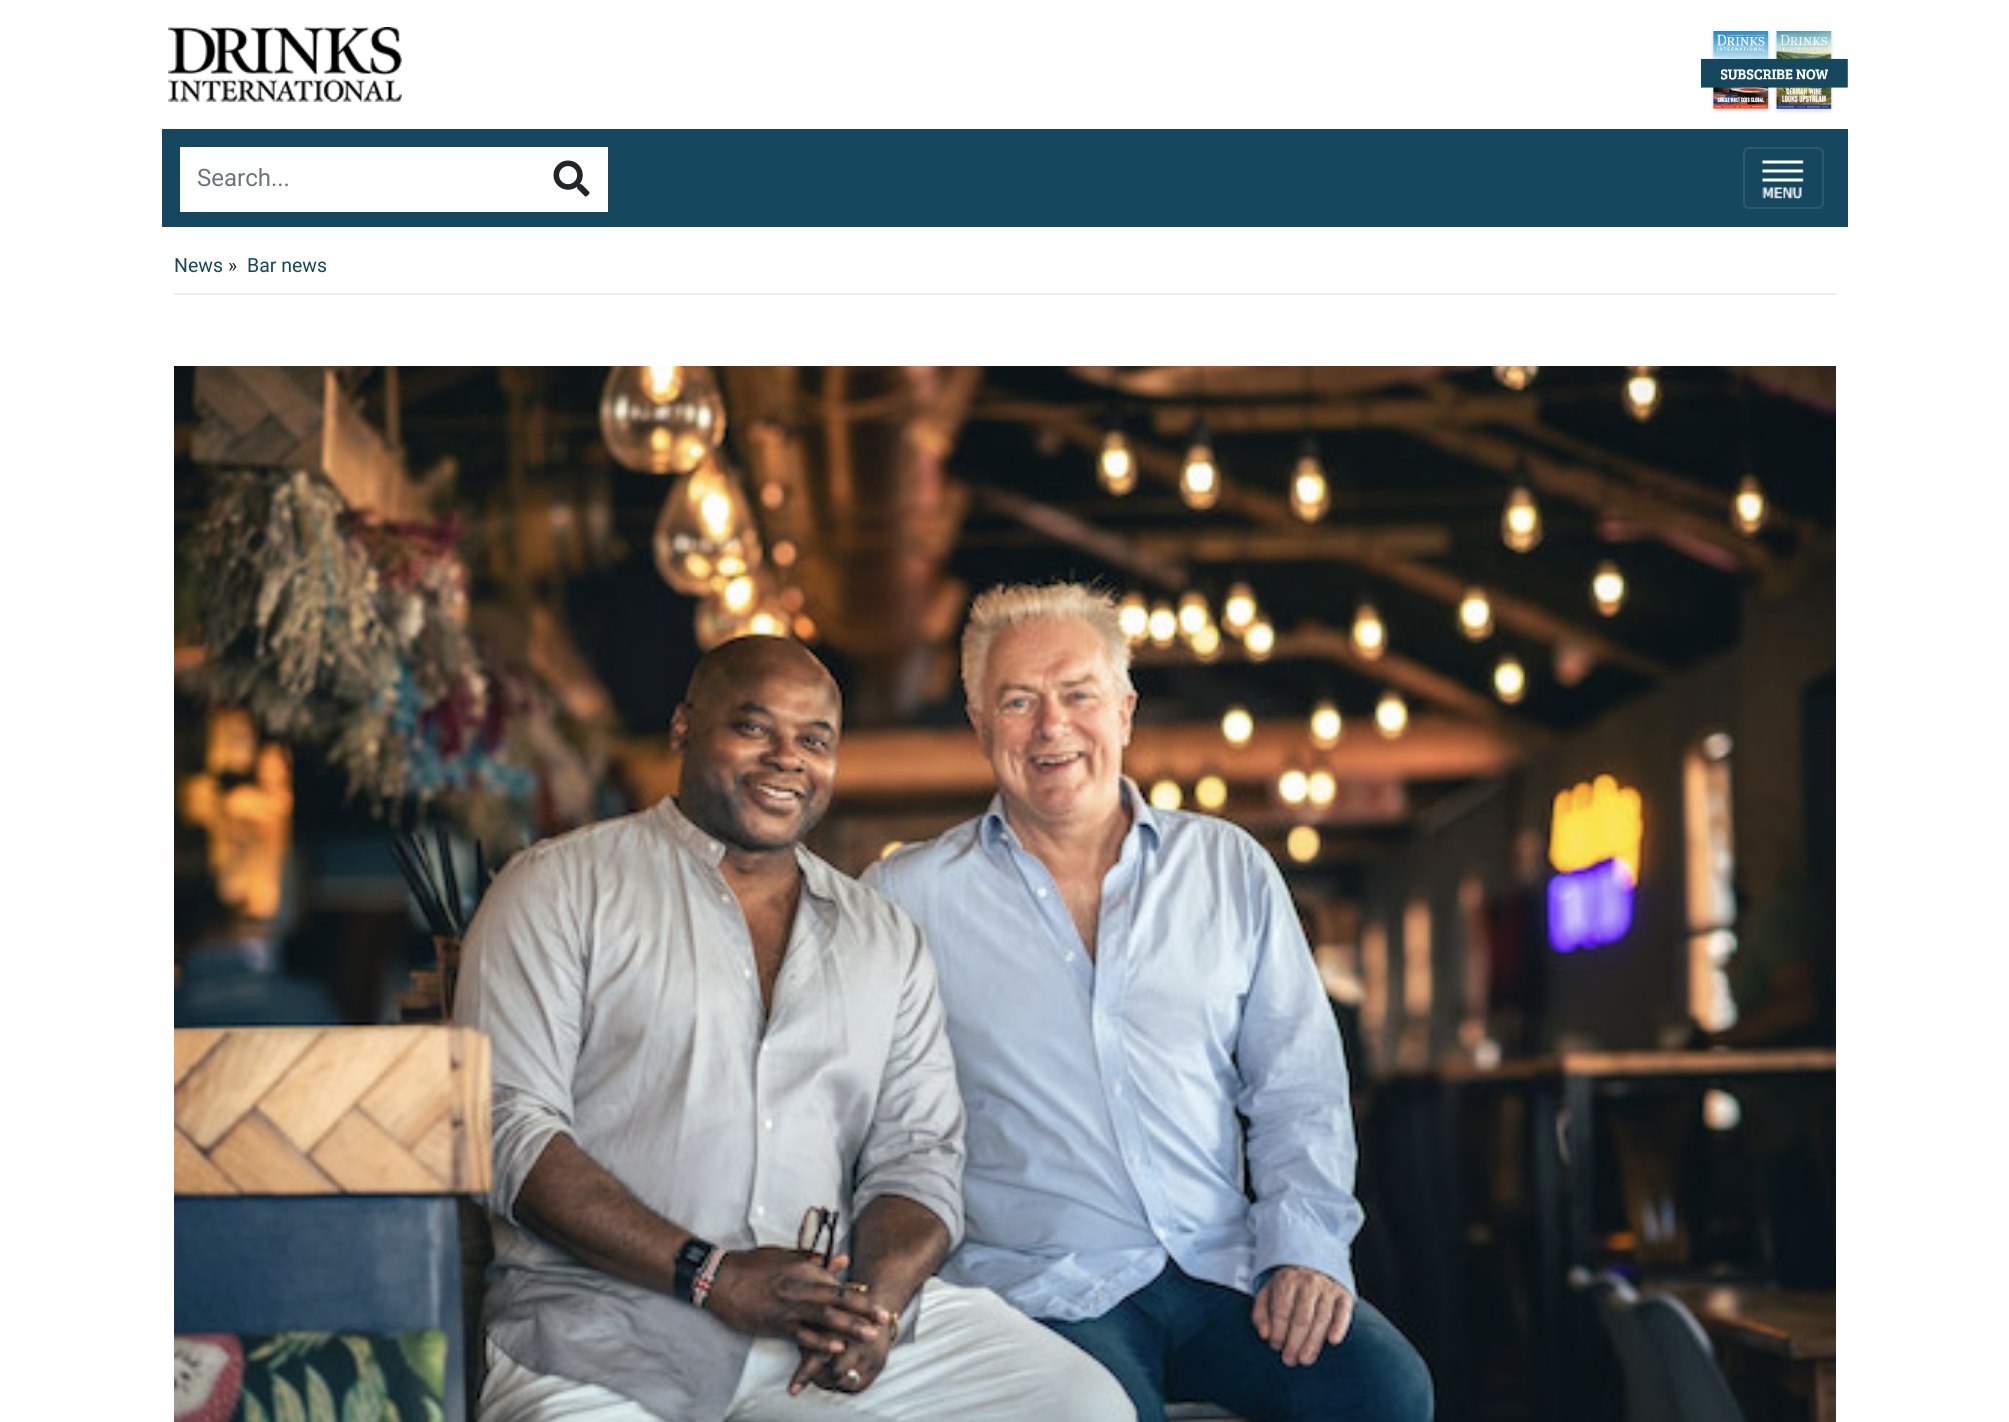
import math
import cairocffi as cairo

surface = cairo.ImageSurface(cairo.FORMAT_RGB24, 2009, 1422)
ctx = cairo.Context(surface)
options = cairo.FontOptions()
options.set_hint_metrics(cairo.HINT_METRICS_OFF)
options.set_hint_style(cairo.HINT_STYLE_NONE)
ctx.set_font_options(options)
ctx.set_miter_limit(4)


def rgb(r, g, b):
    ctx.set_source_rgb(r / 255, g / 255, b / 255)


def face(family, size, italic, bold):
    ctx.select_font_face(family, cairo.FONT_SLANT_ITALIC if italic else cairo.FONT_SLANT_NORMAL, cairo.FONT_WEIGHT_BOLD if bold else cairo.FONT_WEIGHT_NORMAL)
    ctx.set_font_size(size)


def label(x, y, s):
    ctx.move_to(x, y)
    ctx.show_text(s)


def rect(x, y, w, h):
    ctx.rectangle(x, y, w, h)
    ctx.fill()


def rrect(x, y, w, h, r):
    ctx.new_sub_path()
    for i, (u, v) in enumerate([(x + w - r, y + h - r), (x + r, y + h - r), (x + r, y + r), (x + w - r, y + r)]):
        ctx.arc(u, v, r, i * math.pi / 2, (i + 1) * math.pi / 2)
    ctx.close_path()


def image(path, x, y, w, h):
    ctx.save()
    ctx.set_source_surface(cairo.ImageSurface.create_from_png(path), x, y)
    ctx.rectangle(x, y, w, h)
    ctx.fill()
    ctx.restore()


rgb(255, 255, 255)
ctx.paint()
image('image0.png', 168, 27, 234, 75)
image('image1.png', 1701, 31, 147, 82)
rgb(21, 71, 95)
rect(162, 129, 1686, 98)
rgb(255, 255, 255)
rect(180, 147, 428, 65)
face('Roboto', 24, 0, 0)
rgb(108, 117, 125)
label(197, 186, 'Search...')
image('image2.png', 553, 160, 37, 37)
rrect(1744, 148, 79, 60, 5)
rgb(44, 89, 111)
ctx.stroke()
image('image3.png', 1762, 160, 42, 39)
rgb(238, 238, 238)
rect(174, 293, 1662, 2)
face('Roboto', 19.5, 0, 0)
rgb(21, 71, 95)
label(174, 272, 'News')
rgb(33, 37, 41)
label(228, 272, '»')
rgb(21, 71, 95)
label(247, 272, 'Bar news')
image('image4.png', 174, 366, 1662, 1056)
surface.write_to_png('render.png')
